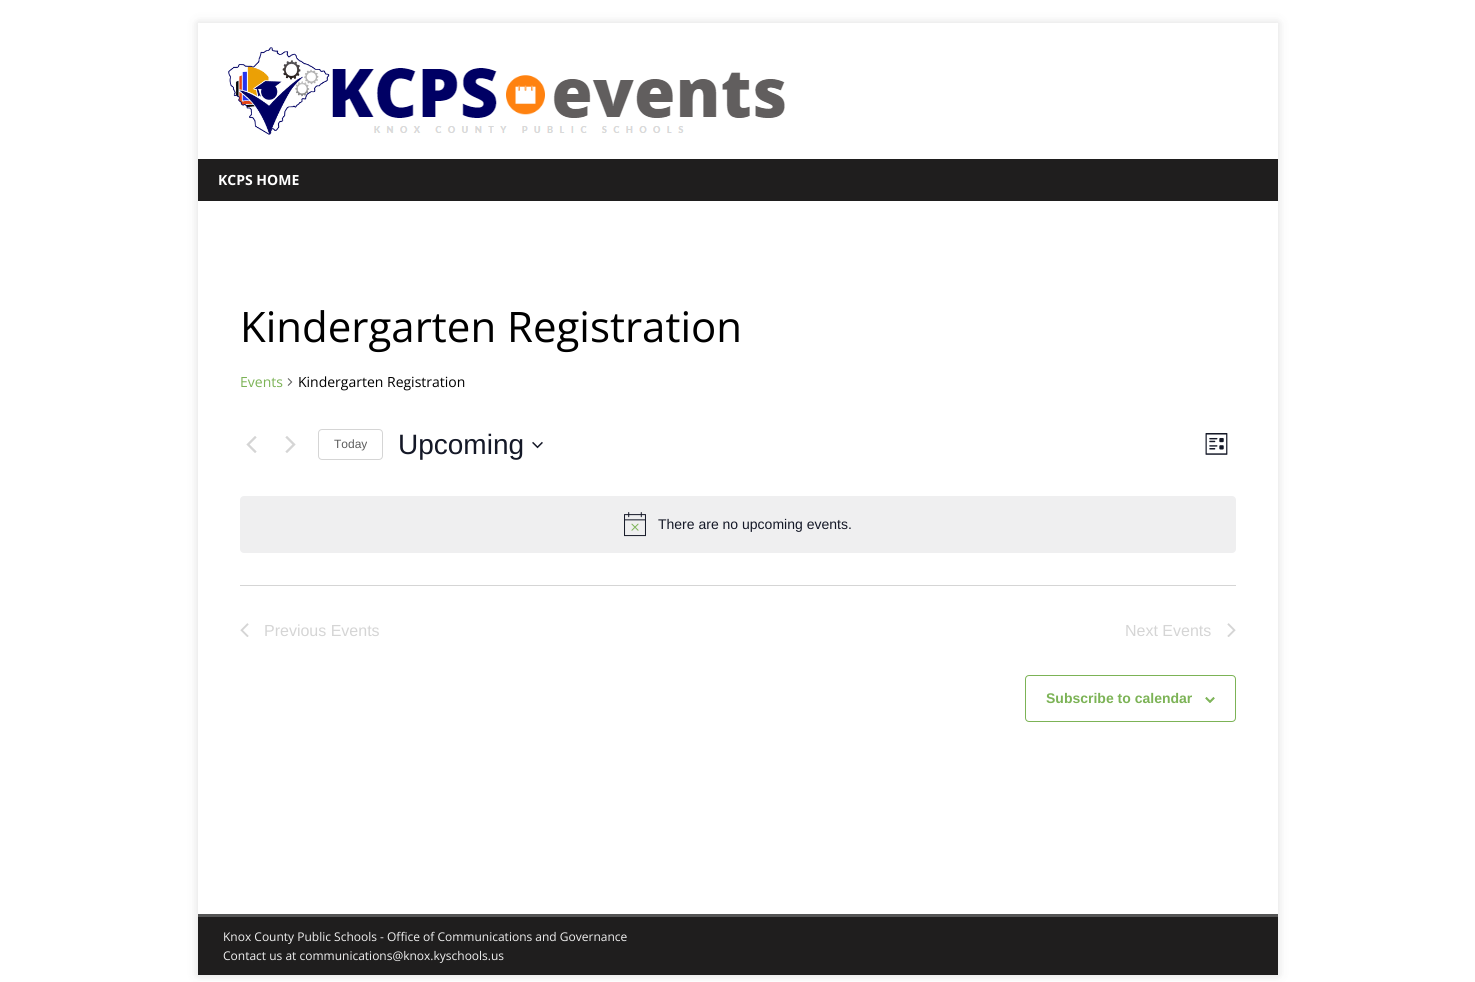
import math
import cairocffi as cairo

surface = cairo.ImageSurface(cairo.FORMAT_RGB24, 1475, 982)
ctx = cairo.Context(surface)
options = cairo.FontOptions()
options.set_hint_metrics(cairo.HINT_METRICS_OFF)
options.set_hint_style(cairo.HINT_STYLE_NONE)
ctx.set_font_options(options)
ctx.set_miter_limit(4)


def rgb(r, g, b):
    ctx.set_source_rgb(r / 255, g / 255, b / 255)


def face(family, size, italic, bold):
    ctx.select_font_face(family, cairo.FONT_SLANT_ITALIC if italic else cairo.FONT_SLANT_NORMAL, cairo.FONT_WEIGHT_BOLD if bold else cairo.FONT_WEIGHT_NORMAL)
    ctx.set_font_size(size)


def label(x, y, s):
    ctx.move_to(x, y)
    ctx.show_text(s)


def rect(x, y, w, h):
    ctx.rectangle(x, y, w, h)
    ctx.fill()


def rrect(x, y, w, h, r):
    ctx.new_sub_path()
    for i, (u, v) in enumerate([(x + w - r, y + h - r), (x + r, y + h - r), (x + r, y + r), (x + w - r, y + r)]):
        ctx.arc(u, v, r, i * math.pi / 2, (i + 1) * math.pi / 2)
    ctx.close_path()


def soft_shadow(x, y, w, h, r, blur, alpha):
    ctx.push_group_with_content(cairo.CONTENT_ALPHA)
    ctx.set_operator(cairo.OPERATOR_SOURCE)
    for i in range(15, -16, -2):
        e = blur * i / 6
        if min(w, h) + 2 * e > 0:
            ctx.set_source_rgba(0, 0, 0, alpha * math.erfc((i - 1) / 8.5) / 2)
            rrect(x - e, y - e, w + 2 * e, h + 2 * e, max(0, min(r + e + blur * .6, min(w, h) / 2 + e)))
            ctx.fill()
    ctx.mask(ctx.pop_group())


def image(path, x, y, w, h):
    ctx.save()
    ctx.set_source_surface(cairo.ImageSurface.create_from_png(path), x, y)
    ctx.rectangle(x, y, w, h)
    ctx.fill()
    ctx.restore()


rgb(255, 255, 255)
ctx.paint()
ctx.save()
ctx.set_fill_rule(cairo.FILL_RULE_EVEN_ODD)
ctx.new_path()
ctx.move_to(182, 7)
ctx.line_to(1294, 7)
ctx.line_to(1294, 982)
ctx.line_to(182, 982)
ctx.close_path()
ctx.move_to(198, 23)
ctx.line_to(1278, 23)
ctx.line_to(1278, 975)
ctx.line_to(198, 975)
ctx.close_path()
ctx.clip()
rgb(50, 50, 50)
soft_shadow(198, 23, 1080, 952, 0, 5, 0.17)
ctx.restore()
image('image0.png', 228, 47, 557, 88)
rgb(31, 30, 30)
rect(198, 159, 1080, 42)
face('Open Sans', 14, 0, 1)
rgb(255, 255, 255)
label(218, 185, 'KCPS HOME')
face('Open Sans', 42, 0, 0)
rgb(0, 0, 0)
label(240, 342, 'Kindergarten Registration')
face('Open Sans', 14, 0, 0)
rgb(124, 179, 86)
label(240, 387, 'Events')
image('image1.png', 287, 378, 6, 8)
rgb(0, 0, 0)
label(298, 387, 'Kindergarten Registration')
image('image2.png', 246, 436, 11, 17)
image('image3.png', 285, 436, 11, 17)
rrect(318.5, 429.5, 64, 30, 3.5)
rgb(213, 213, 213)
ctx.set_line_width(1)
ctx.stroke()
face('Liberation Sans', 12, 0, 0)
rgb(93, 93, 93)
label(334, 448, 'Today')
face('Liberation Sans', 28, 0, 0)
rgb(20, 24, 39)
label(398, 454, 'Upcoming')
image('image4.png', 532, 441, 11, 8)
image('image5.png', 1205, 433, 23, 22)
rgb(239, 239, 240)
rrect(240, 496, 996, 57, 4)
ctx.fill()
image('image6.png', 624, 512, 22, 25)
face('Liberation Sans', 14, 0, 0)
rgb(20, 24, 39)
label(658, 529, 'There are no upcoming events.')
rgb(213, 213, 213)
rect(240, 585, 996, 1)
image('image7.png', 240, 623, 9, 14)
face('Liberation Sans', 16, 0, 0)
label(264, 636, 'Previous Events')
label(1125, 636, 'Next Events')
image('image8.png', 1227, 623, 9, 14)
rrect(1025.5, 675.5, 210, 46, 3.5)
rgb(124, 179, 86)
ctx.stroke()
face('Liberation Sans', 14, 0, 1)
label(1046, 703, 'Subscribe to calendar')
image('image9.png', 1205, 697, 10, 6)
rgb(31, 30, 30)
rect(198, 917, 1080, 58)
rgb(85, 85, 85)
rect(198, 914, 1080, 3)
face('Open Sans', 12, 0, 0)
rgb(239, 239, 239)
label(223, 941, 'Knox County Public Schools - Office of Communications and Governance')
label(223, 960, 'Contact us at communications@knox.kyschools.us')
surface.write_to_png('render.png')
